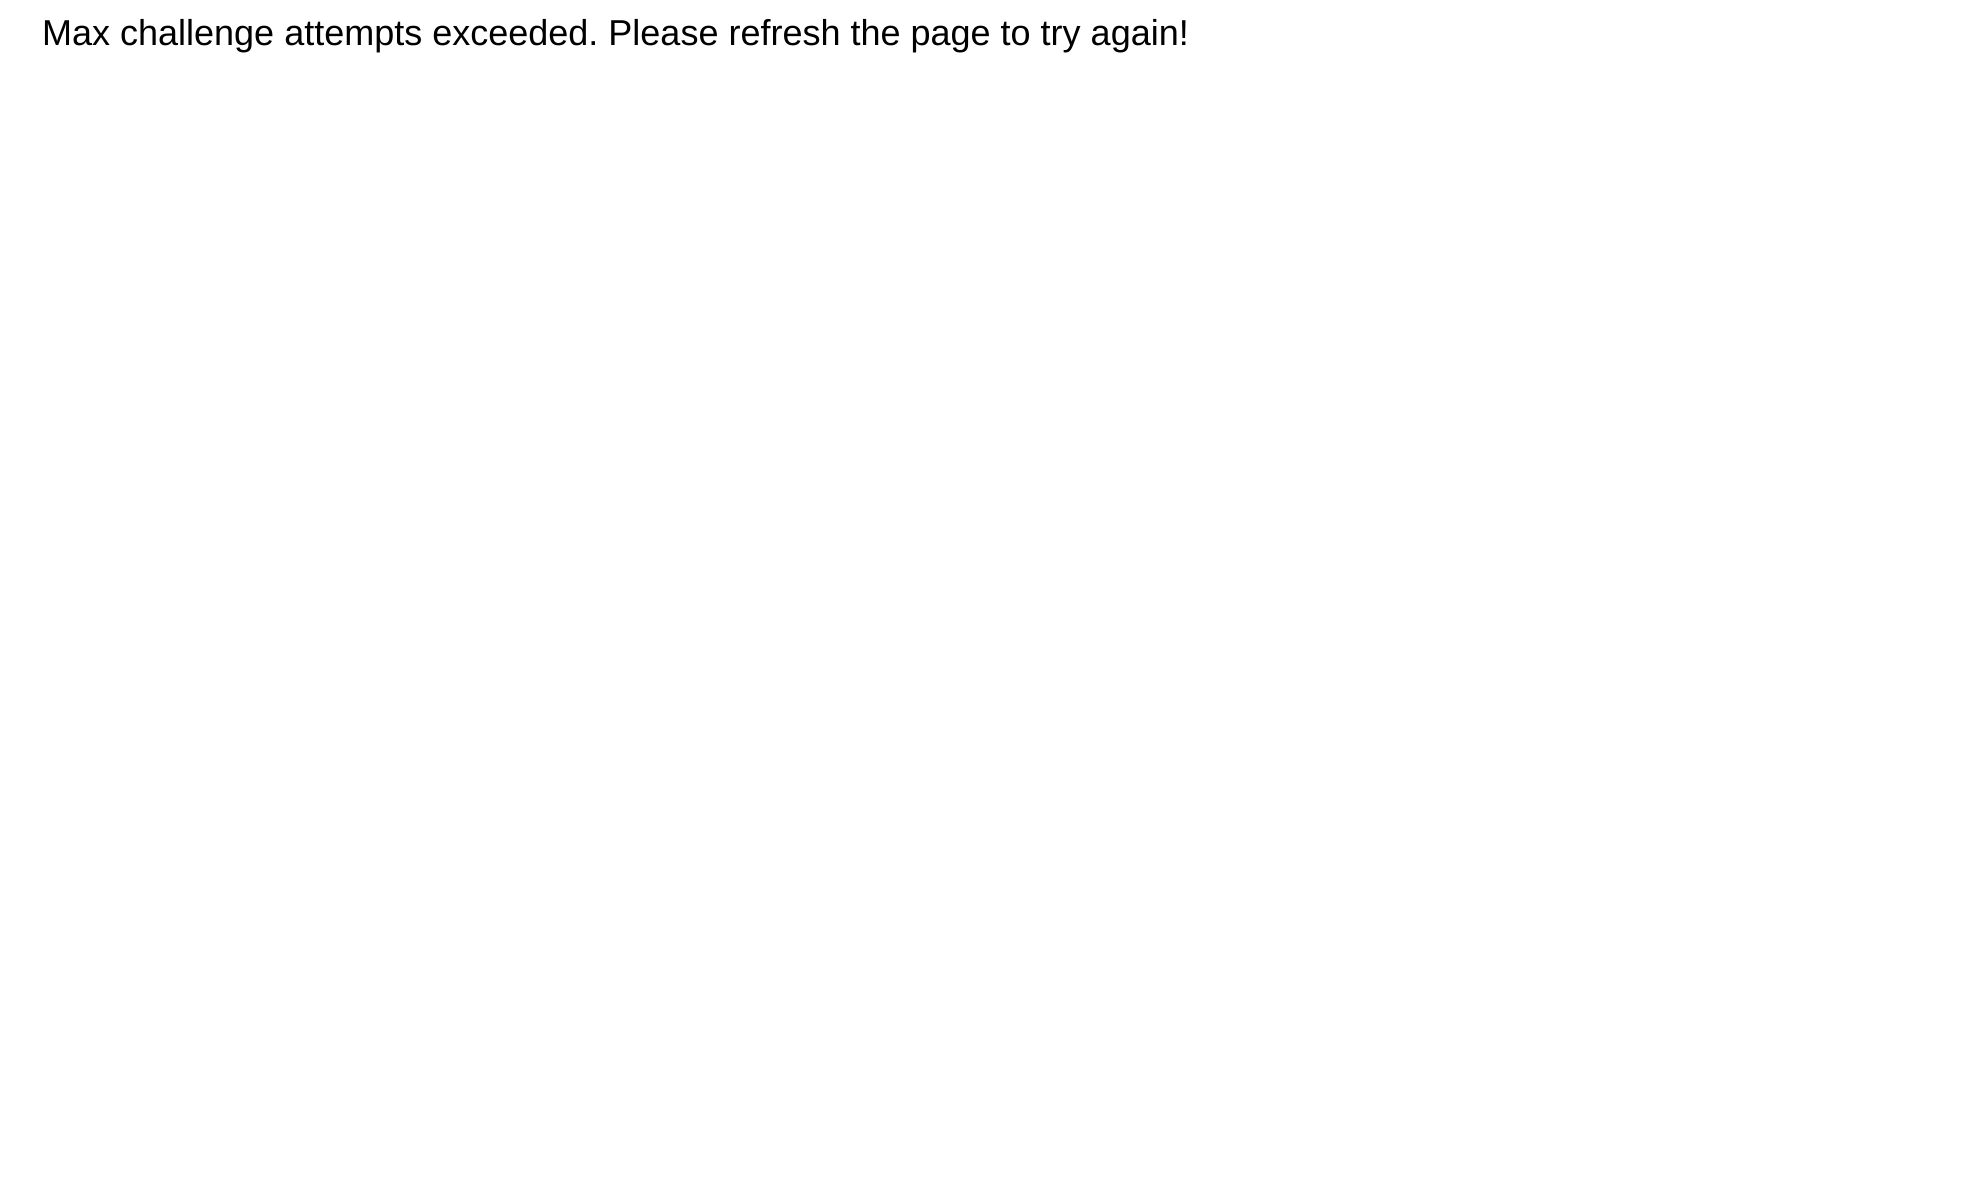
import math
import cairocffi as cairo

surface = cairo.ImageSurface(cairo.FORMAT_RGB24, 1961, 1194)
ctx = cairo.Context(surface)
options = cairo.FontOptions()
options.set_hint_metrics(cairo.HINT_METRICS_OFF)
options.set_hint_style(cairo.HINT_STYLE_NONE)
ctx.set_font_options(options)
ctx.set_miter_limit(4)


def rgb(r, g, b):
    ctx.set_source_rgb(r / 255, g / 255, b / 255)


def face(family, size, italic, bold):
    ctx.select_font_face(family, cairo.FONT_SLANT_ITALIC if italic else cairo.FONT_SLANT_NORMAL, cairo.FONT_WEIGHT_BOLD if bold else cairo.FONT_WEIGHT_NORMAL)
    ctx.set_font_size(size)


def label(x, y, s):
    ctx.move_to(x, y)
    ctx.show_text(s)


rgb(255, 255, 255)
ctx.paint()
face('Liberation Sans', 36, 0, 0)
rgb(0, 0, 0)
label(42, 45, 'Max challenge attempts exceeded. Please refresh the page to try again!')
surface.write_to_png('render.png')
